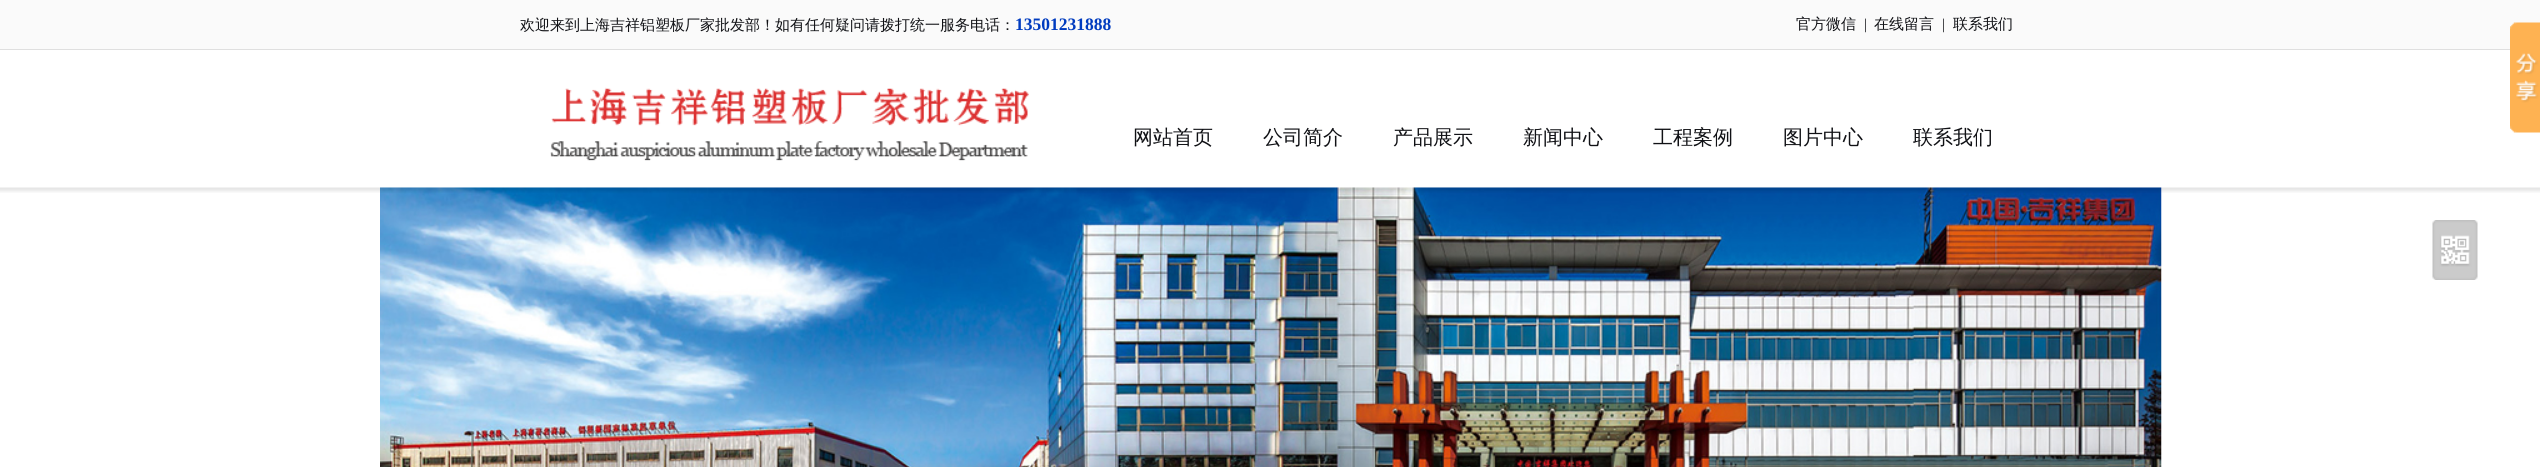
import math
import cairocffi as cairo

surface = cairo.ImageSurface(cairo.FORMAT_RGB24, 2540, 467)
ctx = cairo.Context(surface)
options = cairo.FontOptions()
options.set_hint_metrics(cairo.HINT_METRICS_OFF)
options.set_hint_style(cairo.HINT_STYLE_NONE)
ctx.set_font_options(options)
ctx.set_miter_limit(4)


def rgb(r, g, b):
    ctx.set_source_rgb(r / 255, g / 255, b / 255)


def face(family, size, italic, bold):
    ctx.select_font_face(family, cairo.FONT_SLANT_ITALIC if italic else cairo.FONT_SLANT_NORMAL, cairo.FONT_WEIGHT_BOLD if bold else cairo.FONT_WEIGHT_NORMAL)
    ctx.set_font_size(size)


def label(x, y, s):
    ctx.move_to(x, y)
    ctx.show_text(s)


def rect(x, y, w, h):
    ctx.rectangle(x, y, w, h)
    ctx.fill()


def image(path, x, y, w, h):
    ctx.save()
    ctx.set_source_surface(cairo.ImageSurface.create_from_png(path), x, y)
    ctx.rectangle(x, y, w, h)
    ctx.fill()
    ctx.restore()


rgb(255, 255, 255)
ctx.paint()
rgb(250, 250, 250)
rect(0, 0, 2540, 49)
rgb(223, 223, 223)
rect(0, 49, 2510, 1)
face('WenQuanYi Zen Hei Medium', 15, 0, 0)
rgb(16, 17, 21)
label(520, 30, '欢迎来到上海吉祥铝塑板厂家批发部！如有任何疑问请拨打统一服务电话：')
face('Liberation Serif', 17.5, 0, 1)
rgb(0, 59, 191)
label(1015, 30, '13501231888')
face('WenQuanYi Zen Hei Medium', 15, 0, 0)
rgb(16, 17, 21)
label(1796, 29, '官方微信')
face('Liberation Serif', 15, 0, 0)
label(1864, 29, '|')
face('WenQuanYi Zen Hei Medium', 15, 0, 0)
label(1874, 29, '在线留言')
face('Liberation Serif', 15, 0, 0)
label(1942, 29, '|')
face('WenQuanYi Zen Hei Medium', 15, 0, 0)
label(1953, 29, '联系我们')
image('image0.png', 2510, 22, 30, 111)
image('image1.png', 550, 87, 479, 74)
face('WenQuanYi Zen Hei Medium', 20, 0, 0)
label(1133, 144, '网站首页')
label(1263, 144, '公司简介')
label(1393, 144, '产品展示')
label(1523, 144, '新闻中心')
label(1653, 144, '工程案例')
label(1783, 144, '图片中心')
label(1913, 144, '联系我们')
image('image3.png', 380, 187, 1782, 280)
image('image2.png', 0, 187, 2540, 6)
image('image4.png', 2432, 220, 46, 60)
surface.write_to_png('render.png')
